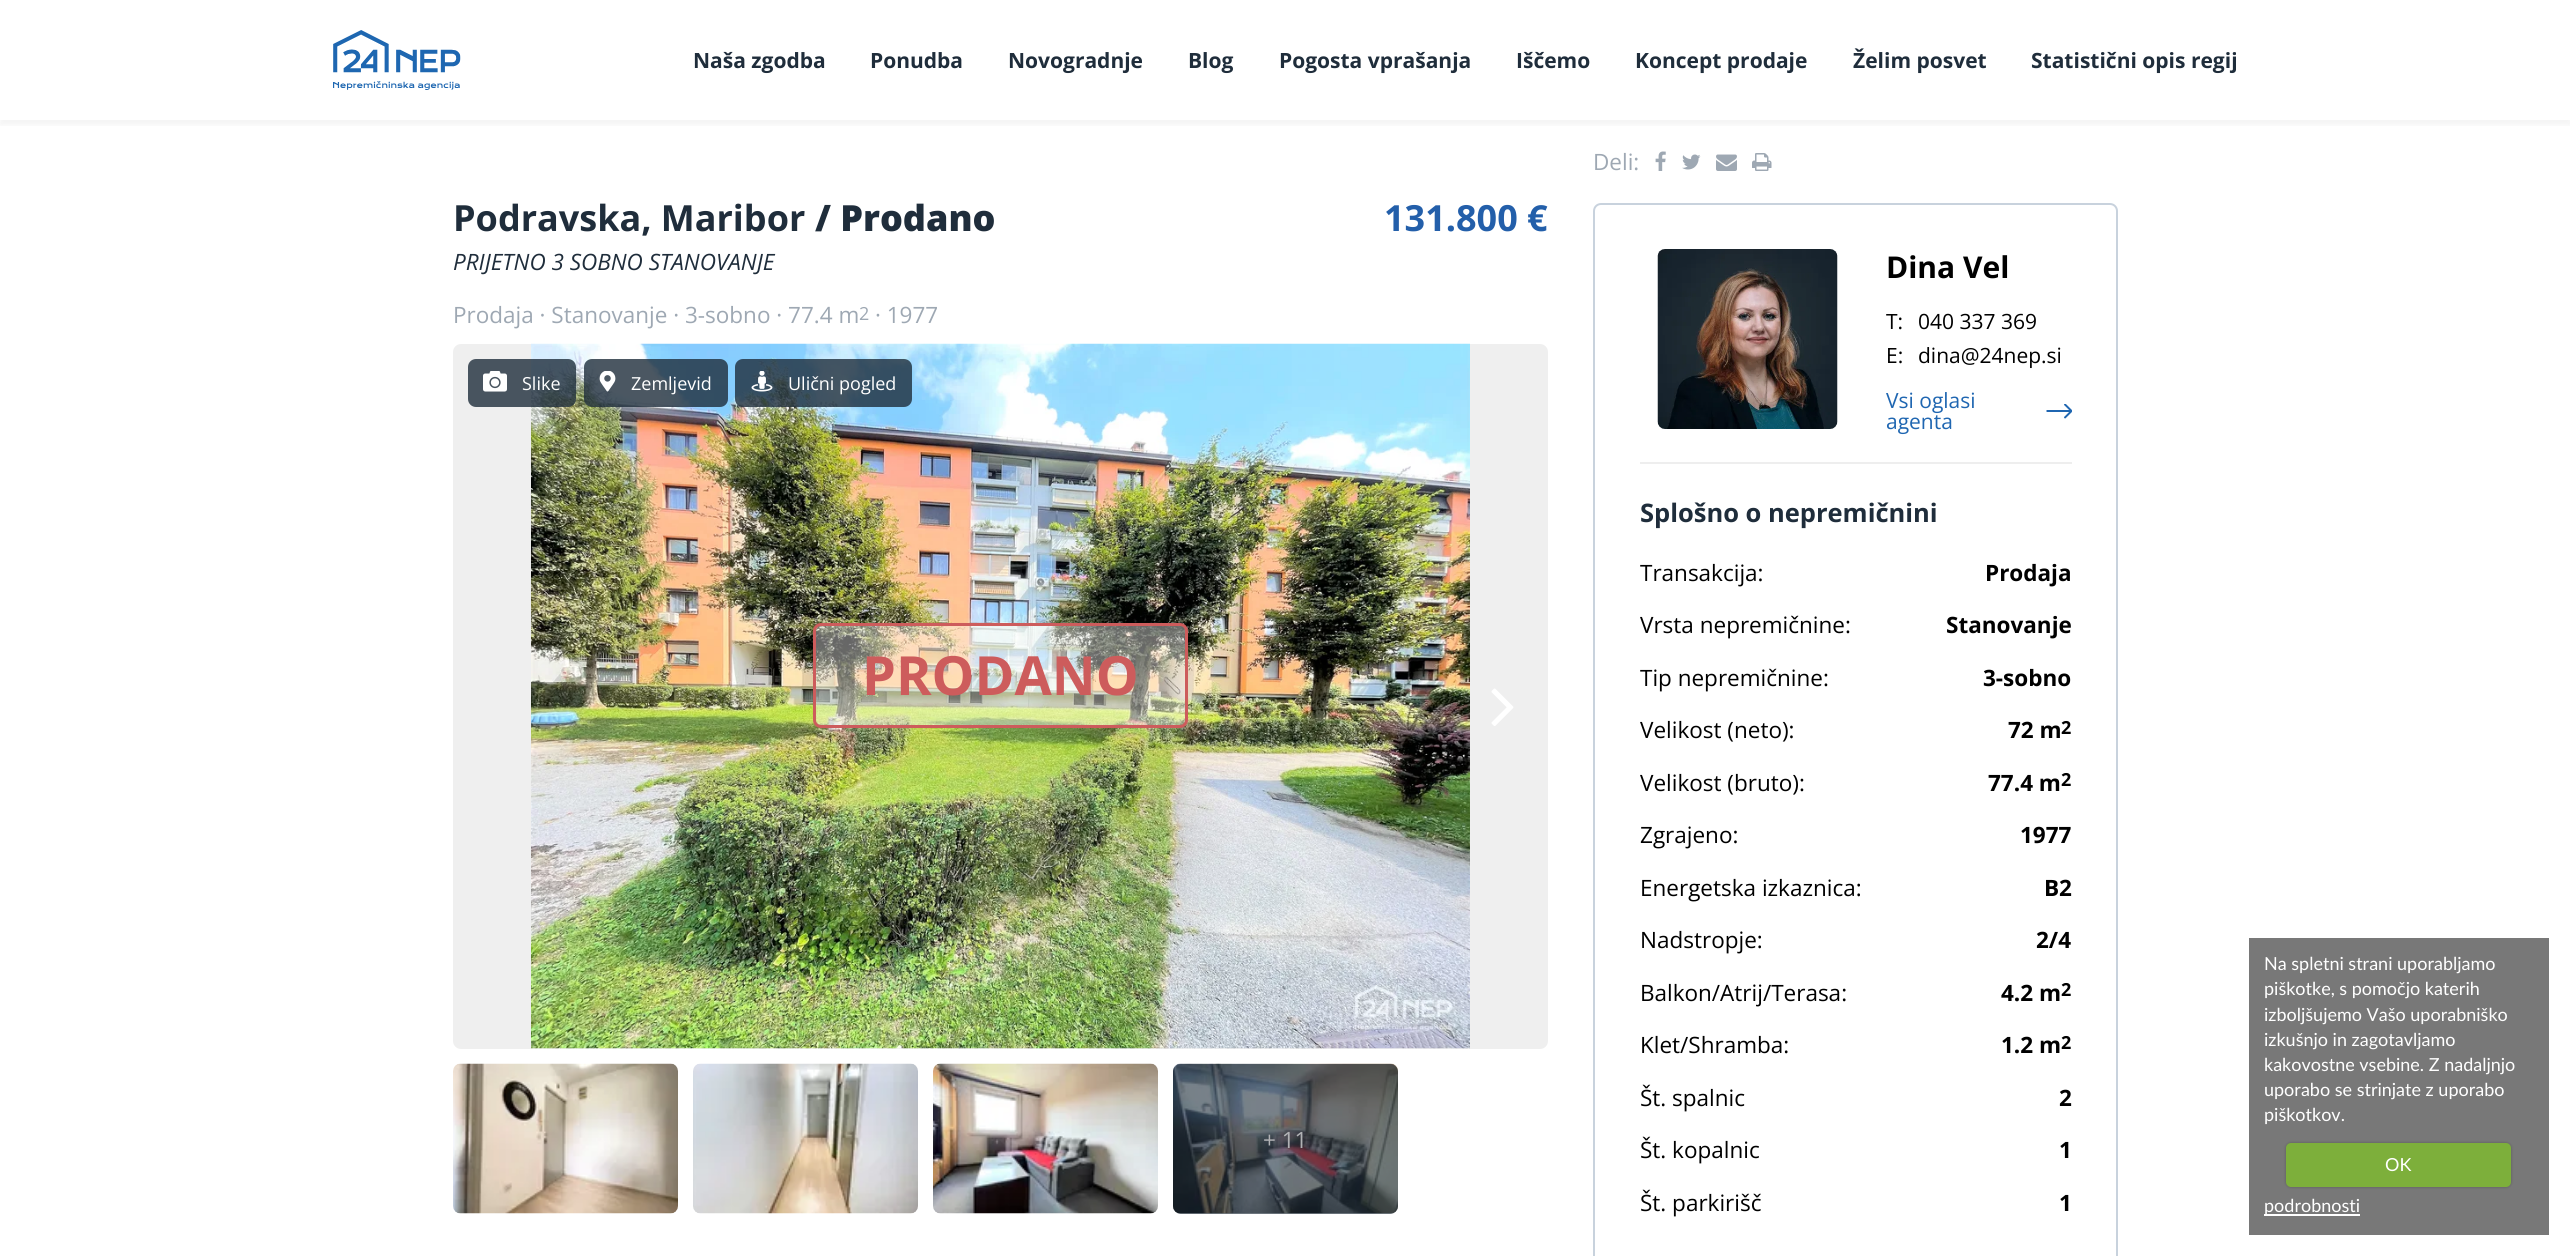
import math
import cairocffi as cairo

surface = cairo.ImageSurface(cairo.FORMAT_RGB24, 2570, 1256)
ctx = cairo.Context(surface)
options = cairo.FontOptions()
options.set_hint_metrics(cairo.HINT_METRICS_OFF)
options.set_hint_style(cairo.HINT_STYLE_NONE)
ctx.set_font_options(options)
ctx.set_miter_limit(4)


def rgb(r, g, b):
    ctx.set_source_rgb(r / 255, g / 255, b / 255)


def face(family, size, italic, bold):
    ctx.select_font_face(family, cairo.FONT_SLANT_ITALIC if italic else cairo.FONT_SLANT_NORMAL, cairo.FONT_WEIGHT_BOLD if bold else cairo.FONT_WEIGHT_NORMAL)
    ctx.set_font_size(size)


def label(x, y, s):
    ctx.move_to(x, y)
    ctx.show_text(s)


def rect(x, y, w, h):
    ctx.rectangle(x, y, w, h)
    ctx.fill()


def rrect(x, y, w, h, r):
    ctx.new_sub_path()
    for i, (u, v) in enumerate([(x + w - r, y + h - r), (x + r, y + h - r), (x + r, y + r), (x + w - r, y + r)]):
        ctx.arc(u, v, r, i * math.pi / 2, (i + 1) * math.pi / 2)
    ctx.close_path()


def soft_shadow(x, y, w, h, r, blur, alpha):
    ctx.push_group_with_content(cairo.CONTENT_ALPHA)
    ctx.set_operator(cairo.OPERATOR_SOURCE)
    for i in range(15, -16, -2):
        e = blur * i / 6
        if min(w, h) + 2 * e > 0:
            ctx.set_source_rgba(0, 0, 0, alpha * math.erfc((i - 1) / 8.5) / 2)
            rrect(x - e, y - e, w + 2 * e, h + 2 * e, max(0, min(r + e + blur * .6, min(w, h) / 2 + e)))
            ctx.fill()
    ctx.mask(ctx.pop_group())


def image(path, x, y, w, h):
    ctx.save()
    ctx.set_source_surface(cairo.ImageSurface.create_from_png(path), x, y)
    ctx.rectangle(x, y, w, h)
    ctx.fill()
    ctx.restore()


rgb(255, 255, 255)
ctx.paint()
ctx.save()
ctx.rectangle(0, 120, 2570, 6)
ctx.clip()
rgb(0, 0, 0)
soft_shadow(0, 5, 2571, 120, 0, 4.5, 0.05)
ctx.restore()
image('image0.png', 333, 30, 128, 60)
face('Open Sans', 21, 0, 1)
rgb(31, 45, 59)
label(693, 68, 'Naša zgodba')
label(870, 68, 'Ponudba')
label(1008, 68, 'Novogradnje')
label(1188, 68, 'Blog')
label(1279, 68, 'Pogosta vprašanja')
label(1516, 68, 'Iščemo')
label(1635, 68, 'Koncept prodaje')
label(1853, 68, 'Želim posvet')
label(2031, 68, 'Statistični opis regij')
face('Open Sans', 36, 0, 1)
label(453, 231, 'Podravska, Maribor')
face('Open Sans ExtraBold', 36, 0, 0)
label(815, 231, '/ Prodano')
face('Open Sans', 22.5, 1, 0)
label(453, 270, 'PRIJETNO 3 SOBNO STANOVANJE')
face('Open Sans', 22.5, 0, 0)
rgb(158, 168, 179)
label(453, 323, 'Prodaja · Stanovanje · 3-sobno · 77.4 m')
face('Open Sans', 18, 0, 0)
label(859, 320, '2')
face('Open Sans', 22.5, 0, 0)
label(875, 323, '· 1977')
face('Open Sans', 36, 0, 1)
rgb(35, 95, 170)
label(1384, 231, '131.800 €')
rgb(239, 239, 239)
rrect(453, 344, 1095, 705, 8)
ctx.fill()
image('image4.png', 531, 343, 939, 706)
ctx.set_source_rgba(0.122, 0.176, 0.231, 0.8)
rrect(468, 359, 108, 48, 8)
ctx.fill()
image('image1.png', 483, 371, 24, 21)
face('Open Sans', 18, 0, 0)
rgb(255, 255, 255)
label(522, 390, 'Slike')
ctx.set_source_rgba(0.122, 0.176, 0.231, 0.8)
rrect(584, 359, 144, 48, 8)
ctx.fill()
image('image2.png', 599, 371, 17, 21)
rgb(255, 255, 255)
label(631, 390, 'Zemljevid')
ctx.set_source_rgba(0.122, 0.176, 0.231, 0.8)
rrect(735, 359, 177, 48, 8)
ctx.fill()
image('image3.png', 751, 371, 22, 21)
rgb(255, 255, 255)
label(788, 390, 'Ulični pogled')
ctx.set_source_rgba(1, 1, 1, 0.4)
rrect(814.5, 624.5, 372, 102, 6.5)
ctx.fill_preserve()
rgb(205, 92, 92)
ctx.set_line_width(3)
ctx.stroke()
face('Open Sans', 54, 0, 1)
label(862, 695, 'PRODANO')
image('image5.png', 453, 1063, 225, 151)
image('image6.png', 693, 1063, 225, 151)
image('image7.png', 933, 1063, 225, 151)
image('image8.png', 1173, 1063, 225, 151)
ctx.set_source_rgba(0.122, 0.176, 0.231, 0.6)
rrect(1173, 1064, 225, 150, 8)
ctx.fill()
face('Open Sans', 22.5, 0, 0)
rgb(177, 178, 181)
label(1263, 1148, '+ 11')
image('image9.png', 1491, 688, 23, 38)
rgb(158, 168, 179)
label(1593, 170, 'Deli:')
image('image10.png', 1655, 151, 11, 20)
image('image11.png', 1682, 154, 19, 16)
image('image12.png', 1716, 154, 21, 17)
image('image13.png', 1752, 153, 20, 18)
rrect(1594, 204, 523, 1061, 7)
rgb(200, 210, 221)
ctx.set_line_width(2)
ctx.stroke()
rgb(238, 238, 238)
rect(1640, 462, 432, 2)
image('image14.png', 1657, 249, 181, 180)
face('Open Sans', 30, 0, 1)
rgb(0, 0, 0)
label(1886, 278, 'Dina Vel')
face('Open Sans', 21, 0, 0)
label(1886, 329, 'T:')
label(1918, 329, '040 337 369')
label(1886, 363, 'E:')
label(1918, 363, 'dina@24nep.si')
rgb(31, 102, 177)
label(1886, 408, 'Vsi oglasi')
image('image15.png', 2046, 404, 26, 15)
label(1886, 429, 'agenta')
face('Open Sans', 25.5, 0, 1)
rgb(31, 45, 59)
label(1640, 522, 'Splošno o nepremičnini')
face('Open Sans', 22.5, 0, 0)
rgb(0, 0, 0)
label(1640, 581, 'Transakcija:')
face('Open Sans', 22.5, 0, 1)
label(1985, 581, 'Prodaja')
face('Open Sans', 22.5, 0, 0)
label(1640, 633, 'Vrsta nepremičnine:')
face('Open Sans', 22.5, 0, 1)
label(1946, 633, 'Stanovanje')
face('Open Sans', 22.5, 0, 0)
label(1640, 686, 'Tip nepremičnine:')
face('Open Sans', 22.5, 0, 1)
label(1983, 686, '3-sobno')
face('Open Sans', 22.5, 0, 0)
label(1640, 738, 'Velikost (neto):')
face('Open Sans', 22.5, 0, 1)
label(2008, 738, '72 m')
face('Open Sans', 18, 0, 1)
label(2061, 734, '2')
face('Open Sans', 22.5, 0, 0)
label(1640, 791, 'Velikost (bruto):')
face('Open Sans', 22.5, 0, 1)
label(1988, 791, '77.4 m')
face('Open Sans', 18, 0, 1)
label(2061, 786, '2')
face('Open Sans', 22.5, 0, 0)
label(1640, 843, 'Zgrajeno:')
face('Open Sans', 22.5, 0, 1)
label(2020, 843, '1977')
face('Open Sans', 22.5, 0, 0)
label(1640, 896, 'Energetska izkaznica:')
face('Open Sans', 22.5, 0, 1)
label(2044, 896, 'B2')
face('Open Sans', 22.5, 0, 0)
label(1640, 948, 'Nadstropje:')
face('Open Sans', 22.5, 0, 1)
label(2036, 948, '2/4')
face('Open Sans', 22.5, 0, 0)
label(1640, 1001, 'Balkon/Atrij/Terasa:')
face('Open Sans', 22.5, 0, 1)
label(2001, 1001, '4.2 m')
face('Open Sans', 18, 0, 1)
label(2061, 996, '2')
face('Open Sans', 22.5, 0, 0)
label(1640, 1053, 'Klet/Shramba:')
face('Open Sans', 22.5, 0, 1)
label(2001, 1053, '1.2 m')
face('Open Sans', 18, 0, 1)
label(2061, 1049, '2')
face('Open Sans', 22.5, 0, 0)
label(1640, 1106, 'Št. spalnic')
face('Open Sans', 22.5, 0, 1)
label(2059, 1106, '2')
face('Open Sans', 22.5, 0, 0)
label(1640, 1158, 'Št. kopalnic')
face('Open Sans', 22.5, 0, 1)
label(2059, 1158, '1')
face('Open Sans', 22.5, 0, 0)
label(1640, 1211, 'Št. parkirišč')
face('Open Sans', 22.5, 0, 1)
label(2059, 1211, '1')
rgb(120, 120, 120)
rect(2249, 938, 300, 297)
face('Lato', 18, 0, 0)
rgb(255, 255, 255)
label(2264, 970, 'Na spletni strani uporabljamo')
label(2264, 995, 'piškotke, s pomočjo katerih')
label(2264, 1021, 'izboljšujemo Vašo uporabniško')
label(2264, 1046, 'izkušnjo in zagotavljamo')
label(2264, 1071, 'kakovostne vsebine. Z nadaljnjo')
label(2264, 1096, 'uporabo se strinjate z uporabo')
label(2264, 1121, 'piškotkov.')
rgb(0, 0, 0)
soft_shadow(2286, 1143, 225, 44, 5, 1.5, 0.25)
rgb(125, 175, 59)
rrect(2286, 1143, 225, 44, 5)
ctx.fill()
rgb(255, 255, 255)
label(2385, 1171, 'OK')
rect(2264, 1214, 96, 2)
label(2264, 1212, 'podrobnosti')
surface.write_to_png('render.png')
